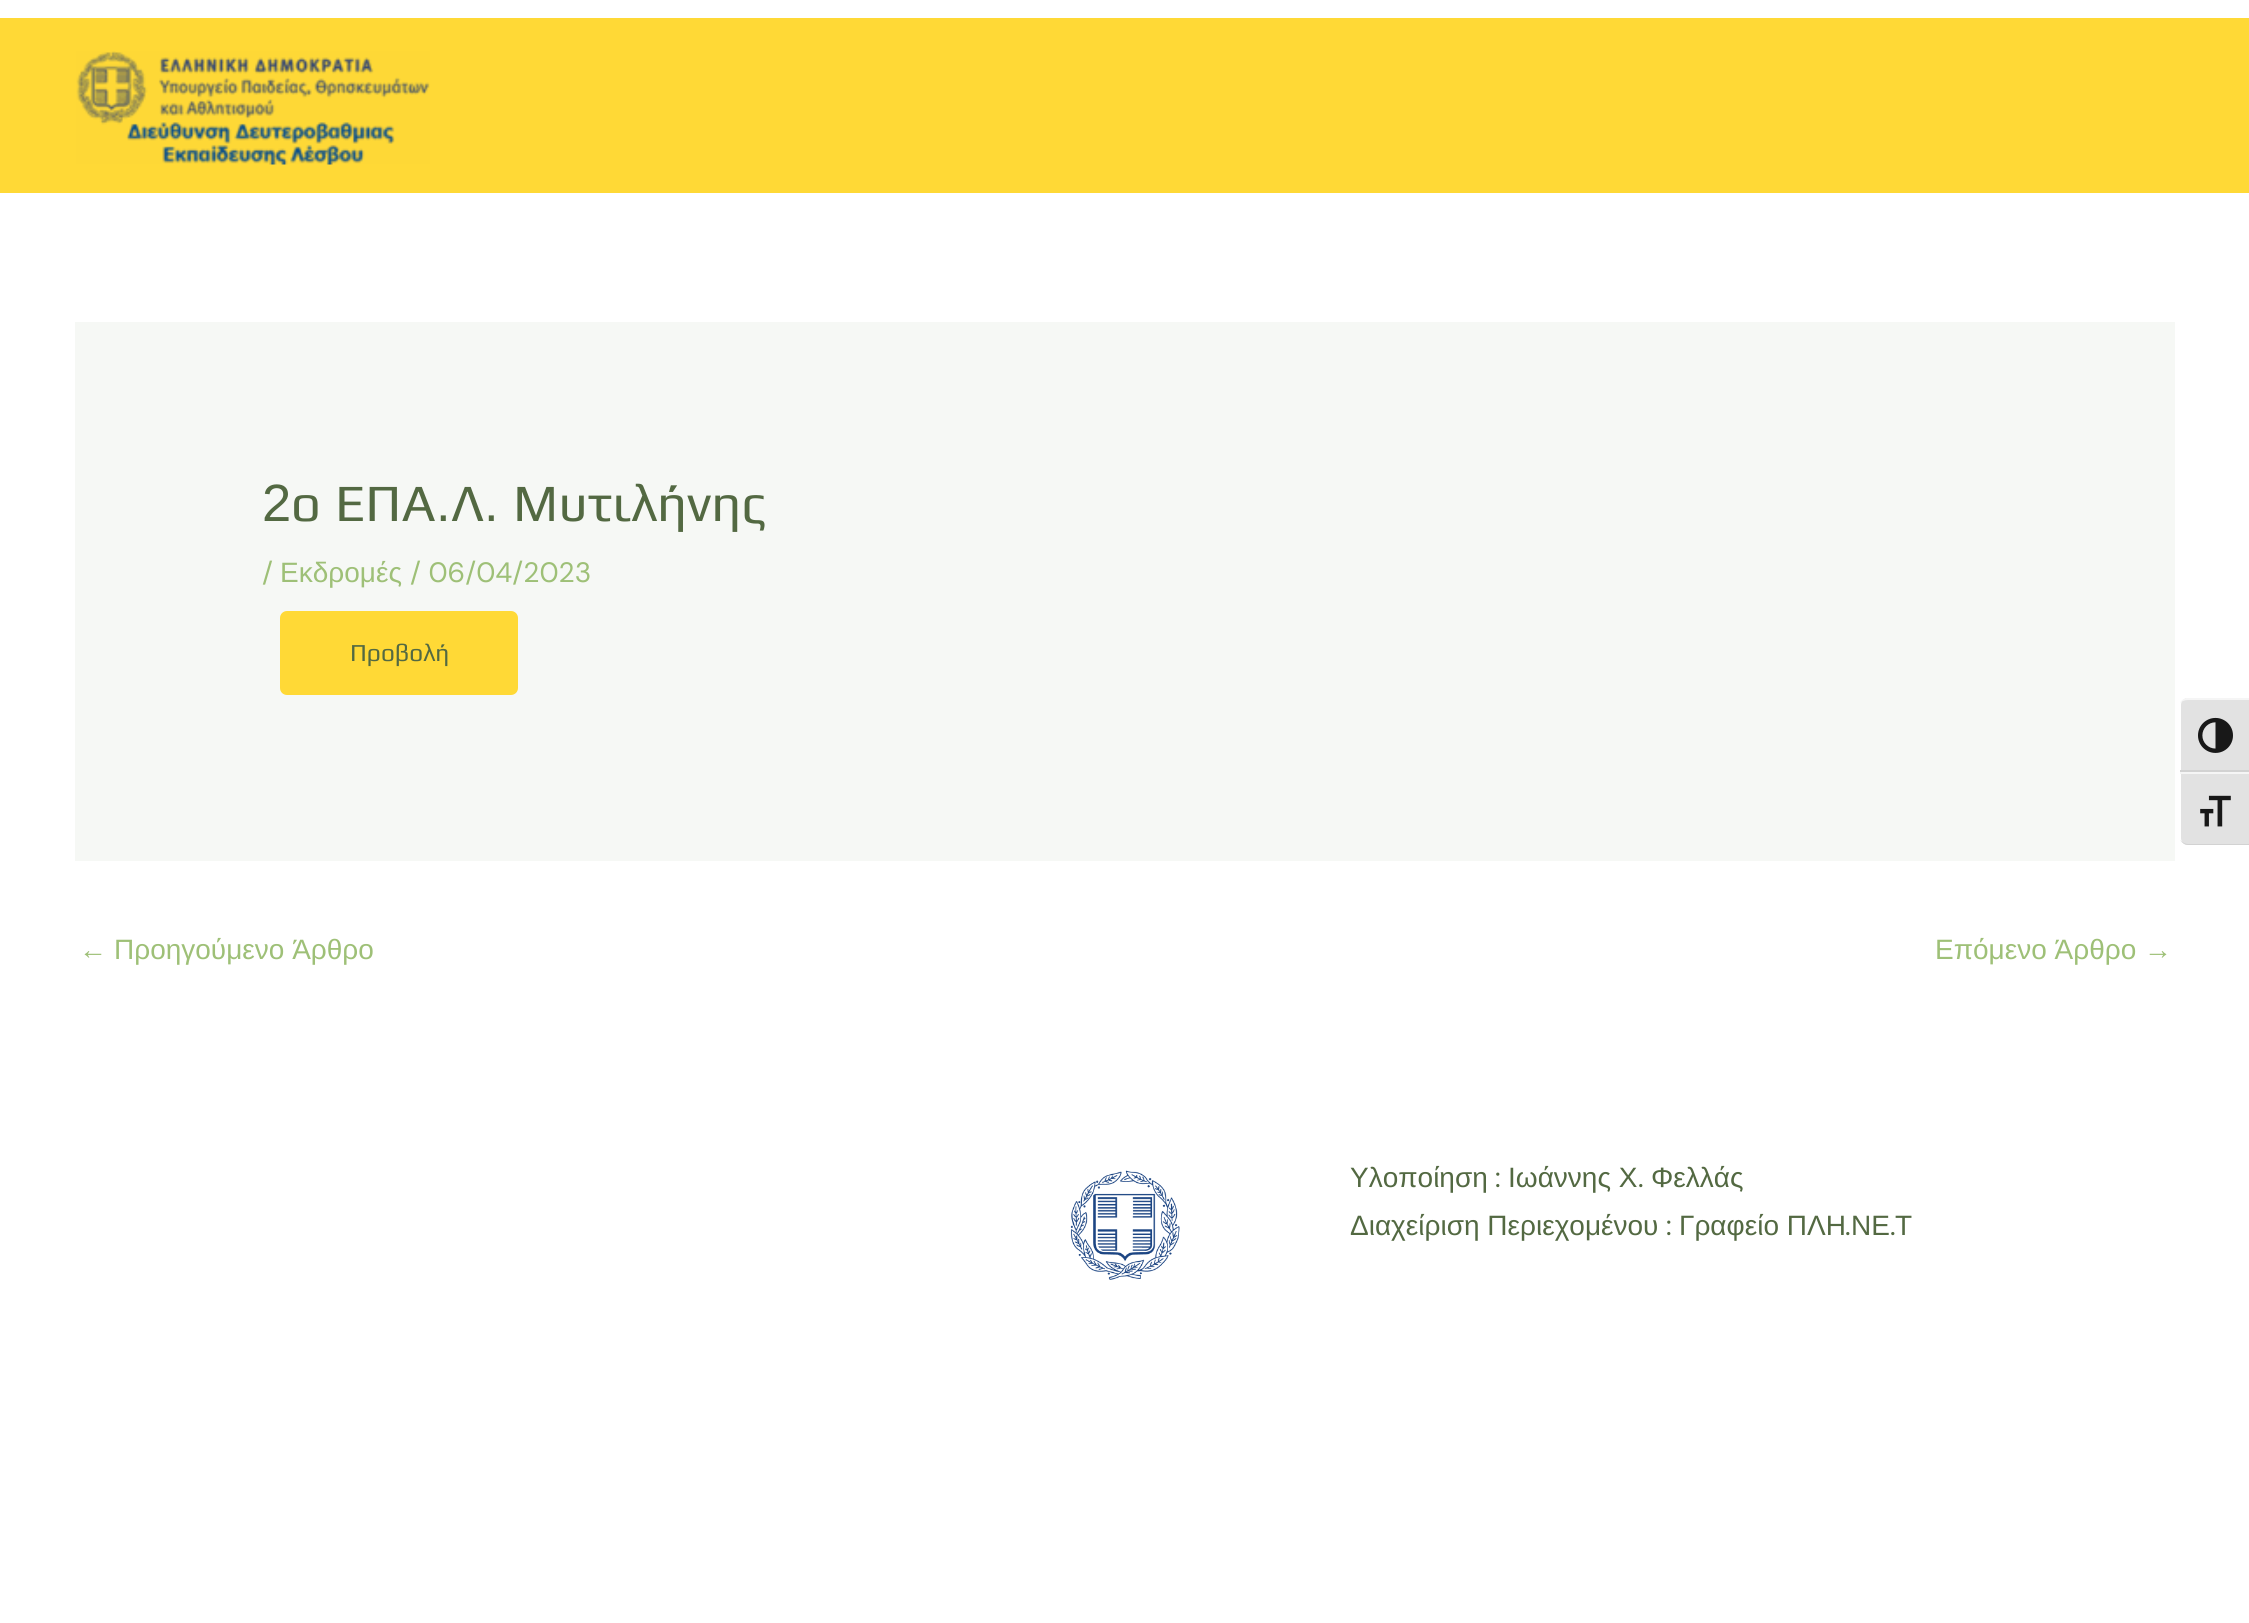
import math
import cairocffi as cairo

surface = cairo.ImageSurface(cairo.FORMAT_RGB24, 2249, 1623)
ctx = cairo.Context(surface)
options = cairo.FontOptions()
options.set_hint_metrics(cairo.HINT_METRICS_OFF)
options.set_hint_style(cairo.HINT_STYLE_NONE)
ctx.set_font_options(options)
ctx.set_miter_limit(4)


def rgb(r, g, b):
    ctx.set_source_rgb(r / 255, g / 255, b / 255)


def face(family, size, italic, bold):
    ctx.select_font_face(family, cairo.FONT_SLANT_ITALIC if italic else cairo.FONT_SLANT_NORMAL, cairo.FONT_WEIGHT_BOLD if bold else cairo.FONT_WEIGHT_NORMAL)
    ctx.set_font_size(size)


def label(x, y, s):
    ctx.move_to(x, y)
    ctx.show_text(s)


def tracked(x, y, s, letter, word):
    ctx.move_to(x, y)
    for ch in s:
        ctx.show_text(ch)
        ctx.rel_move_to(letter + word * (ch == ' '), 0)


def rect(x, y, w, h):
    ctx.rectangle(x, y, w, h)
    ctx.fill()


def rrect(x, y, w, h, r):
    ctx.new_sub_path()
    for i, (u, v) in enumerate([(x + w - r, y + h - r), (x + r, y + h - r), (x + r, y + r), (x + w - r, y + r)]):
        ctx.arc(u, v, r, i * math.pi / 2, (i + 1) * math.pi / 2)
    ctx.close_path()


def image(path, x, y, w, h):
    ctx.save()
    ctx.set_source_surface(cairo.ImageSurface.create_from_png(path), x, y)
    ctx.rectangle(x, y, w, h)
    ctx.fill()
    ctx.restore()


rgb(255, 255, 255)
ctx.paint()
rgb(255, 217, 54)
rect(0, 18, 2249, 175)
image('image0.png', 76, 51, 354, 114)
rgb(246, 248, 245)
rect(75, 322, 2100, 539)
face('Liberation Sans', 52.5, 0, 0)
rgb(83, 105, 66)
label(262, 521, '2')
face('Play', 52.5, 0, 0)
tracked(291, 521, 'ο ΕΠΑ', 0, 2)
face('Liberation Sans', 52.5, 0, 0)
label(436, 521, '.')
face('Play', 52.5, 0, 0)
label(451, 521, 'Λ')
face('Liberation Sans', 52.5, 0, 0)
label(484, 521, '.')
face('Play', 52.5, 0, 0)
label(513, 521, 'Μυτιλήνης')
face('DM Sans', 28, 0, 0)
rgb(158, 192, 119)
label(262, 582, '/')
face('Liberation Sans', 28, 0, 0)
label(280, 582, 'Εκδρομές')
face('DM Sans', 28, 0, 0)
label(410, 582, '/ 06/04/2023')
rgb(255, 217, 54)
rrect(280, 611, 238, 84, 7)
ctx.fill()
face('Play', 24.5, 0, 0)
rgb(83, 105, 66)
label(350, 661, 'Προβολή')
face('Liberation Sans', 28, 0, 0)
rgb(158, 192, 119)
label(79, 959, '←')
label(114, 959, 'Προηγούμενο Άρθρο')
label(1935, 959, 'Επόμενο Άρθρο')
label(2144, 959, '→')
image('image1.png', 1070, 1170, 110, 110)
rgb(83, 105, 66)
label(1350, 1187, 'Υλοποίηση')
face('DM Sans', 28, 0, 0)
label(1495, 1187, ':')
face('Liberation Sans', 28, 0, 0)
label(1508, 1187, 'Ιωάννης Χ')
face('DM Sans', 28, 0, 0)
label(1638, 1187, '.')
face('Liberation Sans', 28, 0, 0)
label(1651, 1187, 'Φελλάς')
label(1350, 1235, 'Διαχείριση Περιεχομένου')
face('DM Sans', 28, 0, 0)
label(1666, 1235, ':')
face('Liberation Sans', 28, 0, 0)
label(1679, 1235, 'Γραφείο ΠΛΗ')
face('DM Sans', 28, 0, 0)
label(1845, 1235, '.')
face('Liberation Sans', 28, 0, 0)
label(1851, 1235, 'ΝΕ')
face('DM Sans', 28, 0, 0)
label(1890, 1235, '.')
face('Liberation Sans', 28, 0, 0)
label(1895, 1235, 'Τ')
rgb(226, 226, 226)
ctx.new_path()
ctx.move_to(2188, 698)
ctx.line_to(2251, 698)
ctx.line_to(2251, 772)
ctx.line_to(2181, 772)
ctx.line_to(2181, 705)
ctx.curve_to(2181, 701, 2184, 698, 2188, 698)
ctx.close_path()
ctx.fill()
rgb(245, 245, 245)
ctx.new_path()
ctx.move_to(2188, 700)
ctx.curve_to(2185, 700, 2182, 701, 2180, 703)
ctx.curve_to(2181, 700, 2184, 699, 2186, 698)
ctx.line_to(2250, 698)
ctx.line_to(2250, 700)
ctx.close_path()
ctx.fill()
rgb(210, 210, 210)
rect(2180, 770, 69, 2)
image('image2.png', 2198, 717, 35, 36)
rgb(226, 226, 226)
ctx.new_path()
ctx.move_to(2181, 772)
ctx.line_to(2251, 772)
ctx.line_to(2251, 845)
ctx.line_to(2188, 845)
ctx.curve_to(2184, 845, 2181, 842, 2181, 838)
ctx.close_path()
ctx.fill()
rgb(245, 245, 245)
rect(2180, 772, 69, 2)
rgb(210, 210, 210)
ctx.new_path()
ctx.move_to(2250, 845)
ctx.line_to(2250, 844)
ctx.line_to(2188, 844)
ctx.curve_to(2185, 844, 2182, 842, 2180, 840)
ctx.curve_to(2182, 843, 2185, 845, 2188, 845)
ctx.close_path()
ctx.fill()
image('image3.png', 2200, 795, 31, 32)
surface.write_to_png('render.png')
